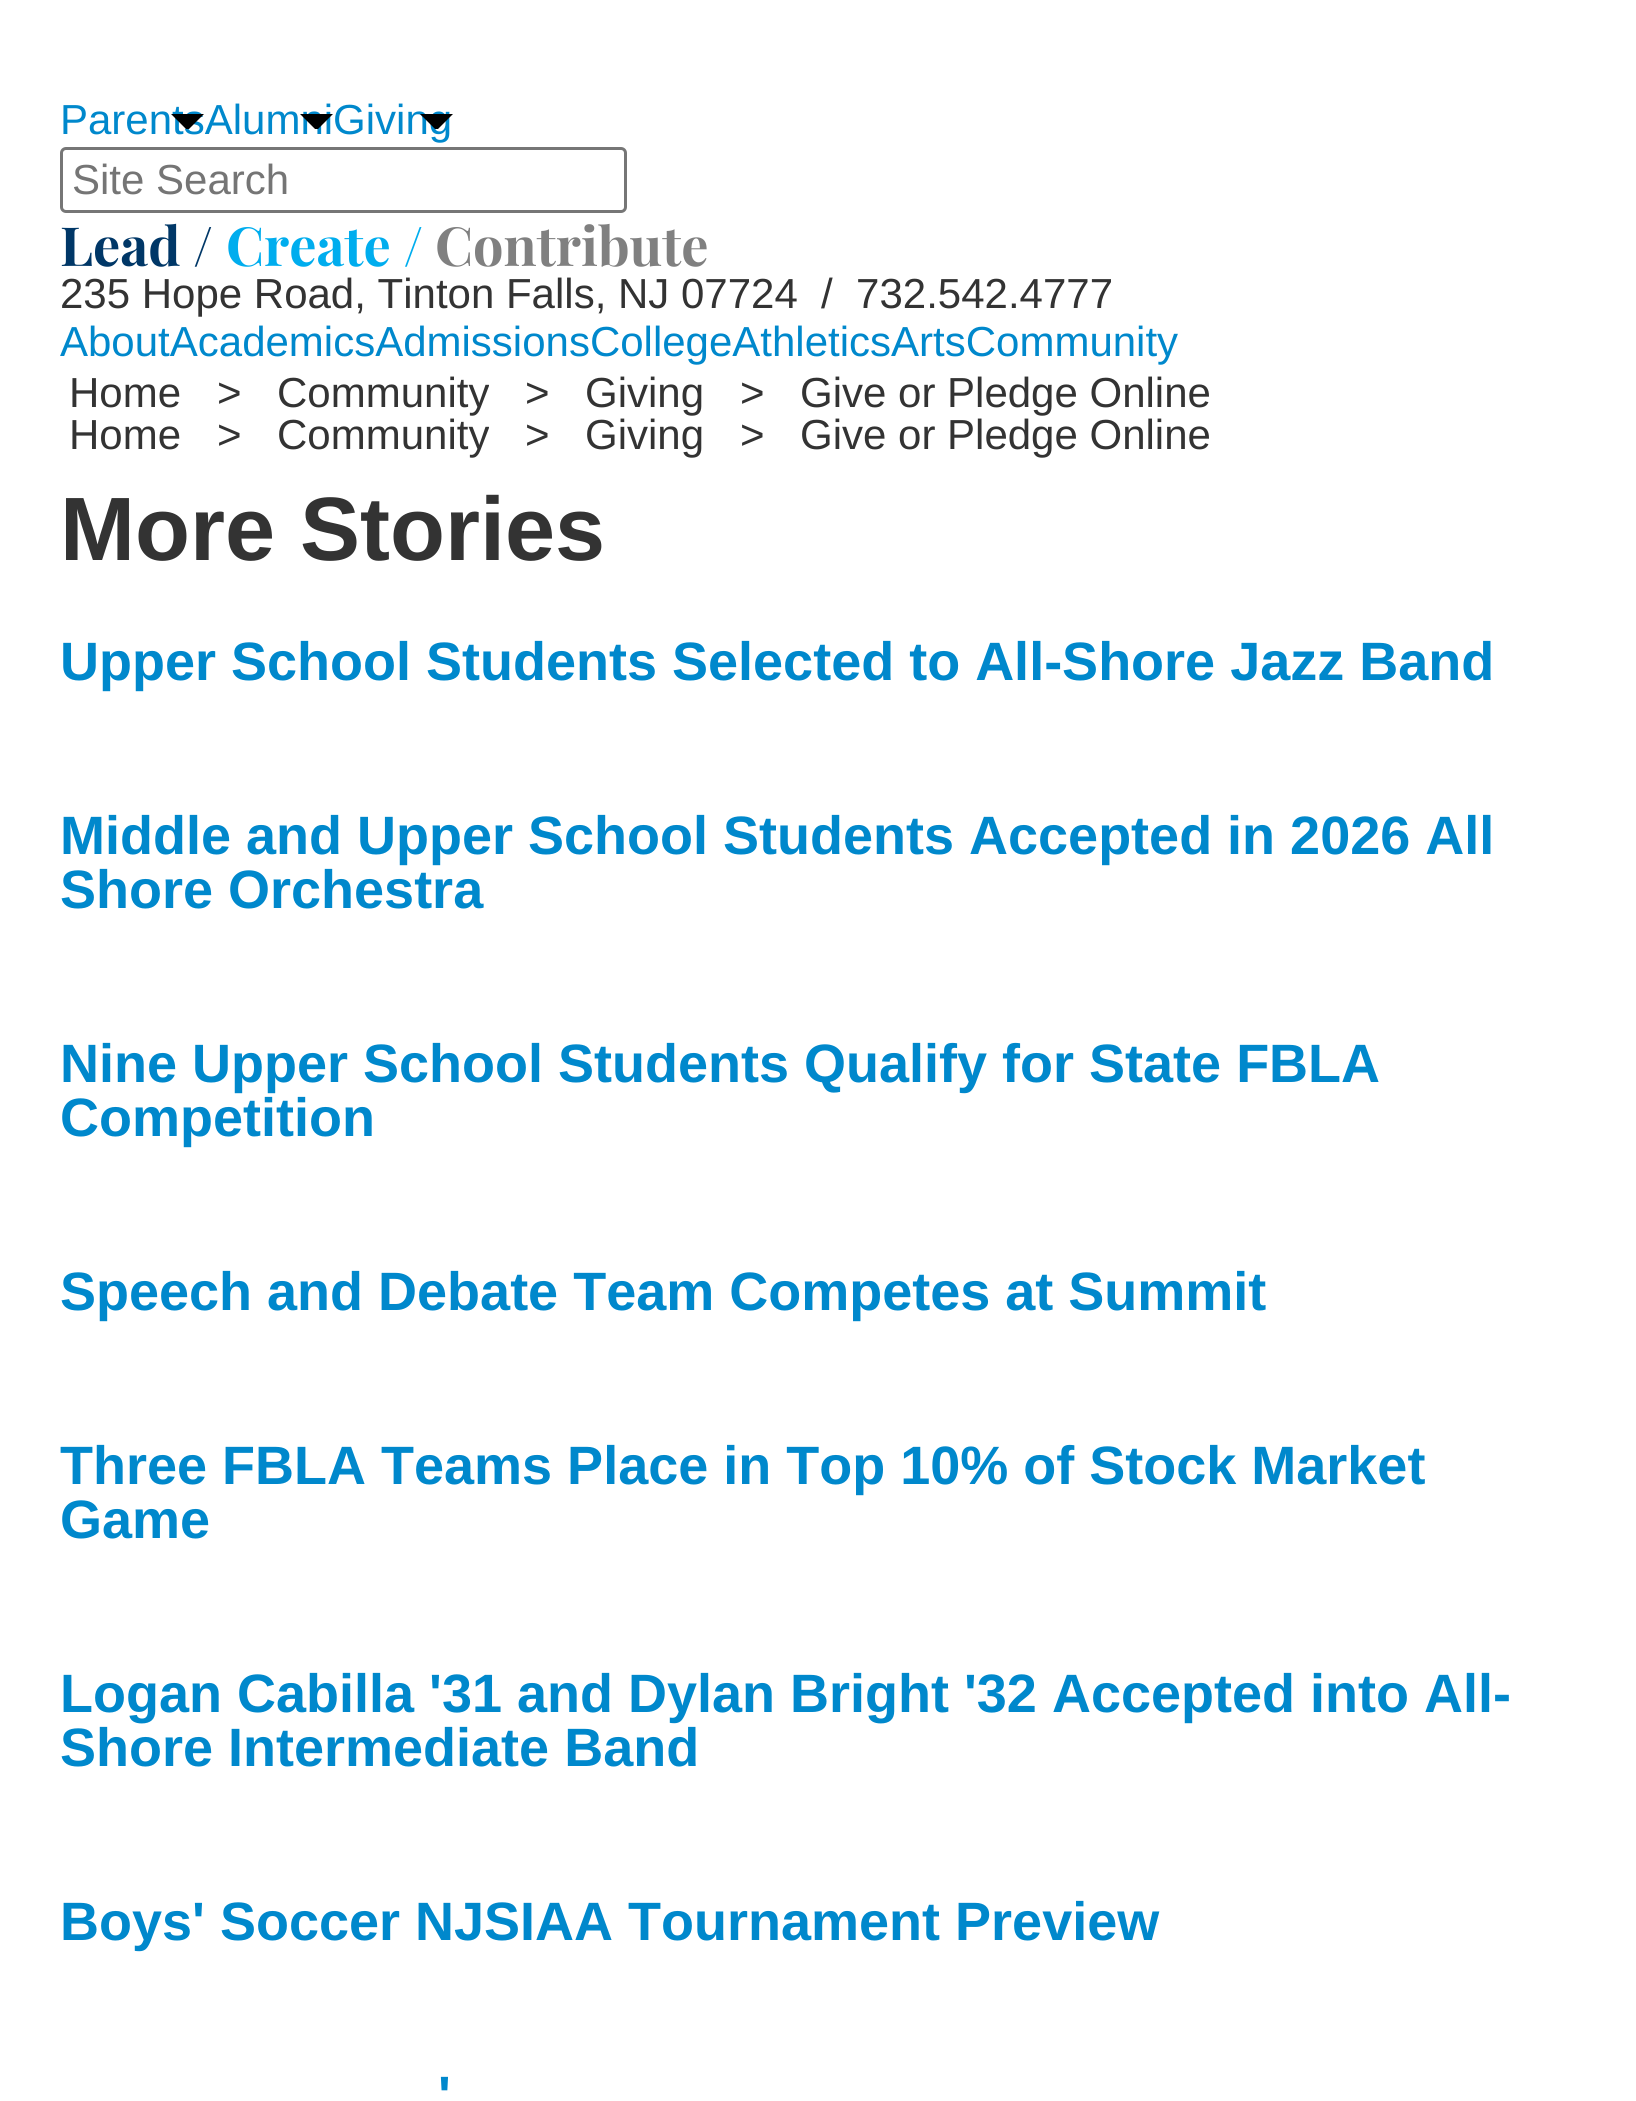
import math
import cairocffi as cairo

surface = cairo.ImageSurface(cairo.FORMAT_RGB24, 1636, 2101)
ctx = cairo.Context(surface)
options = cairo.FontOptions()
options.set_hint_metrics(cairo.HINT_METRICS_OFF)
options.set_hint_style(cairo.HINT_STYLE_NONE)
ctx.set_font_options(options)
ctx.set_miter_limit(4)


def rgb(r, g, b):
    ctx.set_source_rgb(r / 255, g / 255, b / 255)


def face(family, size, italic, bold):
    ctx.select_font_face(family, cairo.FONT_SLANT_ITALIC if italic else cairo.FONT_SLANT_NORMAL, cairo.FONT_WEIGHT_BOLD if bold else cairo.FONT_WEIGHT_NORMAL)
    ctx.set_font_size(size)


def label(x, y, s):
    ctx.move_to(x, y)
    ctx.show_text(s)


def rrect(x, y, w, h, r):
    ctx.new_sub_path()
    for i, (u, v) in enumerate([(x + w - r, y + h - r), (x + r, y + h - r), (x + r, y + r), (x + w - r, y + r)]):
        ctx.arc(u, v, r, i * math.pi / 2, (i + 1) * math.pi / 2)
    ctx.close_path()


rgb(255, 255, 255)
ctx.paint()
face('Liberation Sans', 42, 0, 0)
rgb(0, 136, 204)
label(60, 134, 'ParentsAlumniGiving')
rgb(0, 0, 0)
ctx.new_path()
ctx.move_to(171, 114)
ctx.line_to(204, 114)
ctx.line_to(189, 129)
ctx.line_to(186, 129)
ctx.close_path()
ctx.fill()
ctx.new_path()
ctx.move_to(300, 114)
ctx.line_to(333, 114)
ctx.line_to(318, 129)
ctx.line_to(315, 129)
ctx.close_path()
ctx.fill()
ctx.new_path()
ctx.move_to(420, 114)
ctx.line_to(453, 114)
ctx.line_to(438, 129)
ctx.line_to(435, 129)
ctx.close_path()
ctx.fill()
rrect(61.5, 148.5, 564, 63, 4.5)
rgb(118, 118, 118)
ctx.set_line_width(3)
ctx.stroke()
rgb(117, 117, 117)
label(72, 194, 'Site Search')
face('Playfair Display', 54, 0, 1)
rgb(0, 55, 103)
label(60, 266, 'Lead /')
rgb(0, 173, 238)
label(226, 266, 'Create /')
rgb(128, 128, 128)
label(435, 266, 'Contribute')
face('Liberation Sans', 42, 0, 0)
rgb(51, 51, 51)
label(60, 308, '235 Hope Road, Tinton Falls, NJ 07724  /  732.542.4777')
rgb(0, 136, 204)
label(60, 356, 'AboutAcademicsAdmissionsCollegeAthleticsArtsCommunity')
rgb(51, 51, 51)
label(69, 407, 'Home')
label(217, 407, '>')
label(277, 407, 'Community')
label(525, 407, '>')
label(585, 407, 'Giving')
label(740, 407, '>')
label(800, 407, 'Give or Pledge Online')
label(69, 449, 'Home')
label(217, 449, '>')
label(277, 449, 'Community')
label(525, 449, '>')
label(585, 449, 'Giving')
label(740, 449, '>')
label(800, 449, 'Give or Pledge Online')
face('Liberation Sans', 90, 0, 1)
label(60, 560, 'More Stories')
face('Liberation Sans', 54, 0, 1)
rgb(0, 136, 204)
label(60, 680, 'Upper School Students Selected to All-Shore Jazz Band')
label(60, 854, 'Middle and Upper School Students Accepted in 2026 All')
label(60, 908, 'Shore Orchestra')
label(60, 1082, 'Nine Upper School Students Qualify for State FBLA')
label(60, 1136, 'Competition')
label(60, 1310, 'Speech and Debate Team Competes at Summit')
label(60, 1484, 'Three FBLA Teams Place in Top 10% of Stock Market')
label(60, 1538, 'Game')
label(60, 1712, 'Logan Cabilla \'31 and Dylan Bright \'32 Accepted into All-')
label(60, 1766, 'Shore Intermediate Band')
label(60, 1940, 'Boys\' Soccer NJSIAA Tournament Preview')
label(438, 2114, '\'')
surface.write_to_png('render.png')
